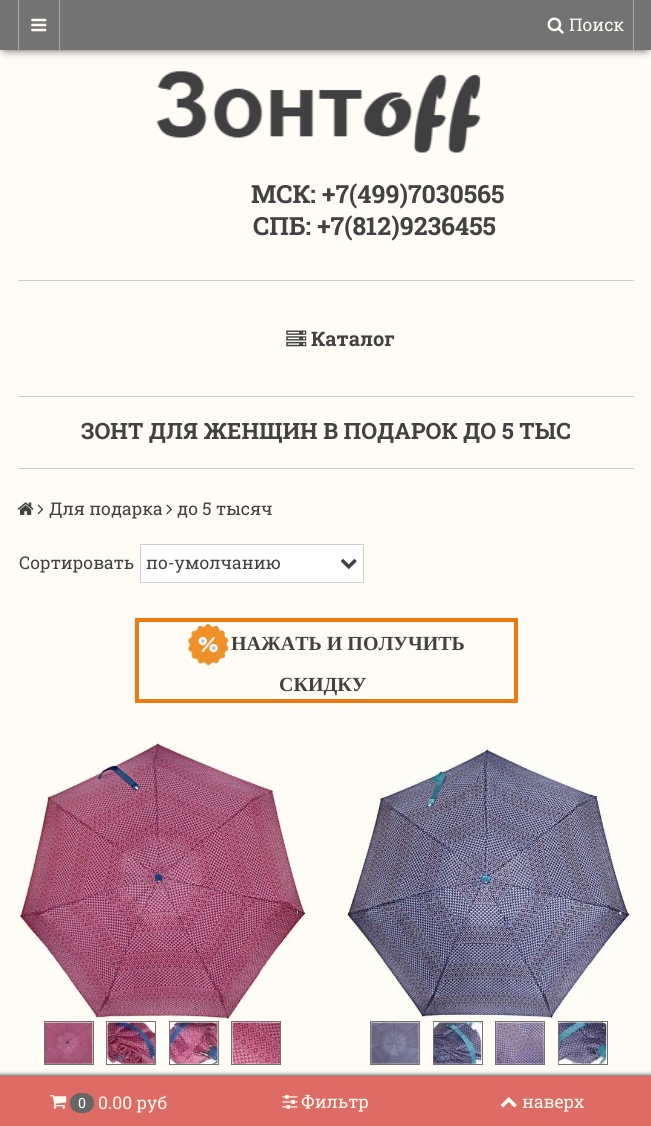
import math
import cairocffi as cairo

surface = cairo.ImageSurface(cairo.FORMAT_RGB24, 651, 1126)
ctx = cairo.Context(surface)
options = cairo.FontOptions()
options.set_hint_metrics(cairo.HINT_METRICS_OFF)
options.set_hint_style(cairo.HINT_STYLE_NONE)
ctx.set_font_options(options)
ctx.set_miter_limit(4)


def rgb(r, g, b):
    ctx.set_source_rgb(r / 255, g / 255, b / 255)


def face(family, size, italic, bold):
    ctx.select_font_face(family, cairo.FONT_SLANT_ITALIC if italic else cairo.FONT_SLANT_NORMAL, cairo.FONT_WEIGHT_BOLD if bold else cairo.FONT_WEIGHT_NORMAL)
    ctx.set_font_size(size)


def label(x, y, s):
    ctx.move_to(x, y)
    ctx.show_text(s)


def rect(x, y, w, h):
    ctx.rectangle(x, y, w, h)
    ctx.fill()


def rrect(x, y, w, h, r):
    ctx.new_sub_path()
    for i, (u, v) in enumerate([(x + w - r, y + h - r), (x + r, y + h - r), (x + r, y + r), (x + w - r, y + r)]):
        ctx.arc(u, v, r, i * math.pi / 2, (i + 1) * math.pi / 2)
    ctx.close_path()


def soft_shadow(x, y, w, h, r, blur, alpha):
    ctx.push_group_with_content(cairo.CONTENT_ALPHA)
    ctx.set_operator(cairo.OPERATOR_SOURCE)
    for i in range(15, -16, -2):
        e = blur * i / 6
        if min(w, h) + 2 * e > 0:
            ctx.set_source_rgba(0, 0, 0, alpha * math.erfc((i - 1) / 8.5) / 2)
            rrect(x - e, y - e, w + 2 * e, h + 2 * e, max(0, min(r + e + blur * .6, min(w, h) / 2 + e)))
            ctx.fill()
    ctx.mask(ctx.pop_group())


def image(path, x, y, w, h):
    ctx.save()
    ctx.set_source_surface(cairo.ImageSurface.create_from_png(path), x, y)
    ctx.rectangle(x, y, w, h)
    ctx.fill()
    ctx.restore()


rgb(255, 252, 246)
ctx.paint()
rgb(0, 0, 0)
soft_shadow(5, 8, 641, 40, 0, 5, 1)
rgb(115, 115, 115)
rect(0, 0, 651, 50)
rgb(171, 171, 171)
rect(59, 0, 1, 50)
rect(18, 0, 1, 50)
image('image0.png', 31, 18, 16, 14)
rect(633, 0, 1, 50)
image('image1.png', 547, 17, 17, 17)
face('Roboto Slab', 17.5, 0, 0)
rgb(255, 252, 246)
label(569, 31, 'Поиск')
image('image2.png', 156, 71, 325, 82)
face('Roboto Slab', 25, 0, 1)
rgb(66, 66, 66)
label(251, 203, 'МСК: +7(499)7030565')
label(253, 235, 'СПБ: +7(812)9236455')
rgb(204, 204, 204)
rect(18, 280, 616, 1)
rect(18, 396, 616, 1)
image('image3.png', 286, 330, 21, 17)
face('Roboto Slab', 20, 0, 1)
rgb(66, 66, 66)
label(311, 346, 'Каталог')
rgb(204, 204, 204)
rect(18, 468, 616, 1)
face('Roboto Slab', 22.5, 0, 1)
rgb(66, 66, 66)
label(81, 439, 'ЗОНТ ДЛЯ ЖЕНЩИН В ПОДАРОК ДО 5 ТЫС')
image('image4.png', 17, 502, 17, 13)
image('image5.png', 37, 504, 7, 11)
face('Roboto Slab', 17.5, 0, 0)
label(49, 515, 'Для подарка')
image('image6.png', 166, 504, 6, 11)
label(177, 515, 'до 5 тысяч')
label(19, 569, 'Сортировать')
rgb(255, 255, 255)
ctx.rectangle(140.5, 544.5, 223, 38)
ctx.fill_preserve()
rgb(204, 204, 204)
ctx.set_line_width(1)
ctx.stroke()
rgb(66, 66, 66)
label(146, 569, 'по-умолчанию')
image('image7.png', 340, 559, 17, 10)
rgb(235, 122, 16)
rect(135, 618, 383, 4)
rect(514, 618, 4, 85)
rect(135, 699, 383, 4)
rect(135, 618, 4, 85)
image('image8.png', 188, 623, 41, 43)
face('Liberation Serif', 20, 0, 1)
rgb(66, 66, 66)
label(231, 650, 'НАЖАТЬ И ПОЛУЧИТЬ')
label(279, 691, 'СКИДКУ')
image('image9.png', 17, 742, 291, 280)
rgb(255, 255, 255)
ctx.rectangle(44.5, 1021.5, 49, 43)
ctx.fill_preserve()
rgb(115, 115, 115)
ctx.stroke()
image('image10.png', 45, 1022, 48, 42)
rgb(255, 255, 255)
ctx.rectangle(106.5, 1021.5, 49, 43)
ctx.fill_preserve()
rgb(115, 115, 115)
ctx.stroke()
image('image11.png', 107, 1022, 48, 42)
rgb(255, 255, 255)
ctx.rectangle(169.5, 1021.5, 49, 43)
ctx.fill_preserve()
rgb(115, 115, 115)
ctx.stroke()
image('image12.png', 170, 1022, 48, 42)
rgb(255, 255, 255)
ctx.rectangle(231.5, 1021.5, 49, 43)
ctx.fill_preserve()
rgb(115, 115, 115)
ctx.stroke()
image('image13.png', 232, 1022, 48, 42)
image('image14.png', 344, 747, 289, 272)
rgb(255, 255, 255)
ctx.rectangle(370.5, 1021.5, 49, 43)
ctx.fill_preserve()
rgb(115, 115, 115)
ctx.stroke()
image('image15.png', 371, 1022, 48, 42)
rgb(255, 255, 255)
ctx.rectangle(433.5, 1021.5, 49, 43)
ctx.fill_preserve()
rgb(115, 115, 115)
ctx.stroke()
image('image16.png', 433, 1022, 49, 42)
rgb(255, 255, 255)
ctx.rectangle(495.5, 1021.5, 49, 43)
ctx.fill_preserve()
rgb(115, 115, 115)
ctx.stroke()
image('image17.png', 496, 1022, 48, 42)
rgb(255, 255, 255)
ctx.rectangle(558.5, 1021.5, 49, 43)
ctx.fill_preserve()
rgb(115, 115, 115)
ctx.stroke()
image('image18.png', 558, 1022, 49, 42)
rgb(0, 0, 0)
soft_shadow(0, 1076, 651, 50, 0, 2.5, 1)
rgb(222, 108, 100)
rect(0, 1076, 651, 50)
image('image19.png', 50, 1095, 17, 14)
rgb(102, 102, 102)
rrect(70, 1093, 24, 20, 10)
ctx.fill()
face('Roboto Slab', 14, 0, 0)
rgb(255, 255, 255)
label(78, 1108, '0')
face('Roboto Slab', 17.5, 0, 0)
rgb(255, 252, 246)
label(98, 1109, '0.00 руб')
image('image20.png', 282, 1095, 16, 14)
label(301, 1108, 'Фильтр')
image('image21.png', 501, 1097, 16, 11)
label(522, 1108, 'наверх')
surface.write_to_png('render.png')
